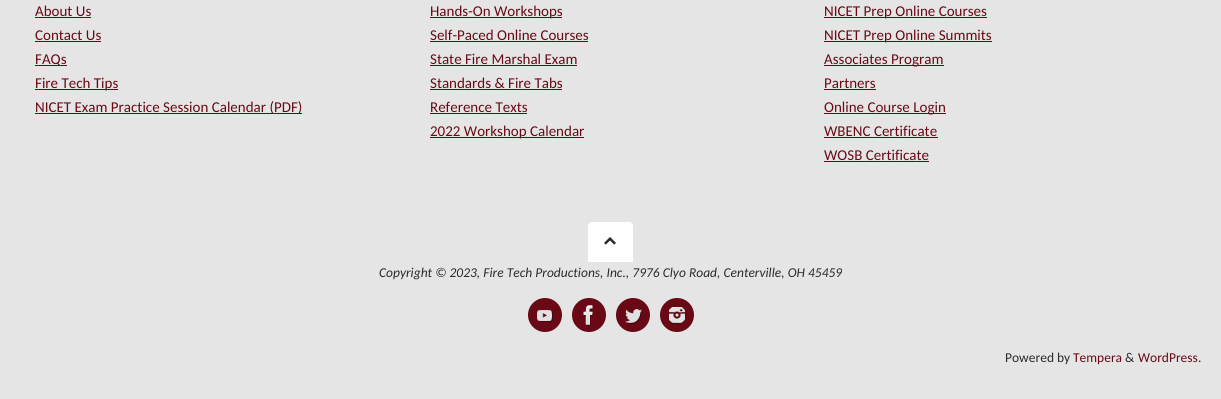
import math
import cairocffi as cairo

surface = cairo.ImageSurface(cairo.FORMAT_RGB24, 1221, 399)
ctx = cairo.Context(surface)
options = cairo.FontOptions()
options.set_hint_metrics(cairo.HINT_METRICS_OFF)
options.set_hint_style(cairo.HINT_STYLE_NONE)
ctx.set_font_options(options)
ctx.set_miter_limit(4)


def rgb(r, g, b):
    ctx.set_source_rgb(r / 255, g / 255, b / 255)


def face(family, size, italic, bold):
    ctx.select_font_face(family, cairo.FONT_SLANT_ITALIC if italic else cairo.FONT_SLANT_NORMAL, cairo.FONT_WEIGHT_BOLD if bold else cairo.FONT_WEIGHT_NORMAL)
    ctx.set_font_size(size)


def label(x, y, s):
    ctx.move_to(x, y)
    ctx.show_text(s)


def rect(x, y, w, h):
    ctx.rectangle(x, y, w, h)
    ctx.fill()


def image(path, x, y, w, h):
    ctx.save()
    ctx.set_source_surface(cairo.ImageSurface.create_from_png(path), x, y)
    ctx.rectangle(x, y, w, h)
    ctx.fill()
    ctx.restore()


rgb(229, 229, 230)
ctx.paint()
face('Carlito', 15, 0, 0)
rgb(105, 9, 21)
label(35, 16, 'About Us')
rect(35, 17, 56, 1)
label(35, 40, 'Contact Us')
rect(35, 41, 66, 1)
rect(35, 65, 32, 1)
label(35, 64, 'FAQs')
rect(35, 89, 83, 1)
label(35, 88, 'Fire Tech Tips')
rect(35, 113, 267, 1)
label(35, 112, 'NICET Exam Practice Session Calendar (PDF)')
rect(430, 17, 132, 1)
label(430, 16, 'Hands-On Workshops')
label(430, 40, 'Self-Paced Online Courses')
rect(430, 41, 158, 1)
label(430, 64, 'State Fire Marshal Exam')
rect(430, 65, 147, 1)
label(430, 88, 'Standards & Fire Tabs')
rect(430, 89, 132, 1)
label(430, 112, 'Reference Texts')
rect(430, 113, 97, 1)
rect(430, 137, 154, 1)
label(430, 136, '2022 Workshop Calendar')
rect(824, 17, 163, 1)
label(824, 16, 'NICET Prep Online Courses')
rect(824, 41, 168, 1)
label(824, 40, 'NICET Prep Online Summits')
rect(824, 65, 120, 1)
label(824, 64, 'Associates Program')
label(824, 88, 'Partners')
rect(824, 89, 52, 1)
rect(824, 113, 122, 1)
label(824, 112, 'Online Course Login')
label(824, 136, 'WBENC Certificate')
rect(824, 137, 114, 1)
label(824, 160, 'WOSB Certificate')
rect(824, 161, 105, 1)
rgb(255, 255, 255)
ctx.new_path()
ctx.move_to(592, 222)
ctx.line_to(629, 222)
ctx.curve_to(631, 222, 633, 224, 633, 226)
ctx.line_to(633, 262)
ctx.line_to(588, 262)
ctx.line_to(588, 226)
ctx.curve_to(588, 224, 590, 222, 592, 222)
ctx.close_path()
ctx.fill()
image('image0.png', 604, 237, 12, 8)
face('Carlito', 13.5, 1, 0)
rgb(42, 44, 43)
label(379, 277, 'Copyright © 2023, Fire Tech Productions, Inc., 7976 Clyo Road, Centerville, OH 45459')
rgb(105, 9, 21)
ctx.new_path()
ctx.arc(545, 315, 17, 0, 2 * math.pi)
ctx.fill()
image('image1.png', 537, 310, 16, 12)
ctx.arc(589, 315, 17, 0, 2 * math.pi)
ctx.fill()
image('image2.png', 582, 305, 12, 22)
ctx.arc(633, 315, 17, 0, 2 * math.pi)
ctx.fill()
image('image3.png', 625, 309, 18, 15)
ctx.arc(677, 315, 17, 0, 2 * math.pi)
ctx.fill()
image('image4.png', 668, 307, 18, 18)
face('Carlito', 13.5, 0, 0)
rgb(42, 44, 43)
label(1005, 362, 'Powered by')
rgb(105, 9, 21)
label(1073, 362, 'Tempera')
rgb(42, 44, 43)
label(1125, 362, '&')
rgb(105, 9, 21)
label(1138, 362, 'WordPress.')
surface.write_to_png('render.png')
